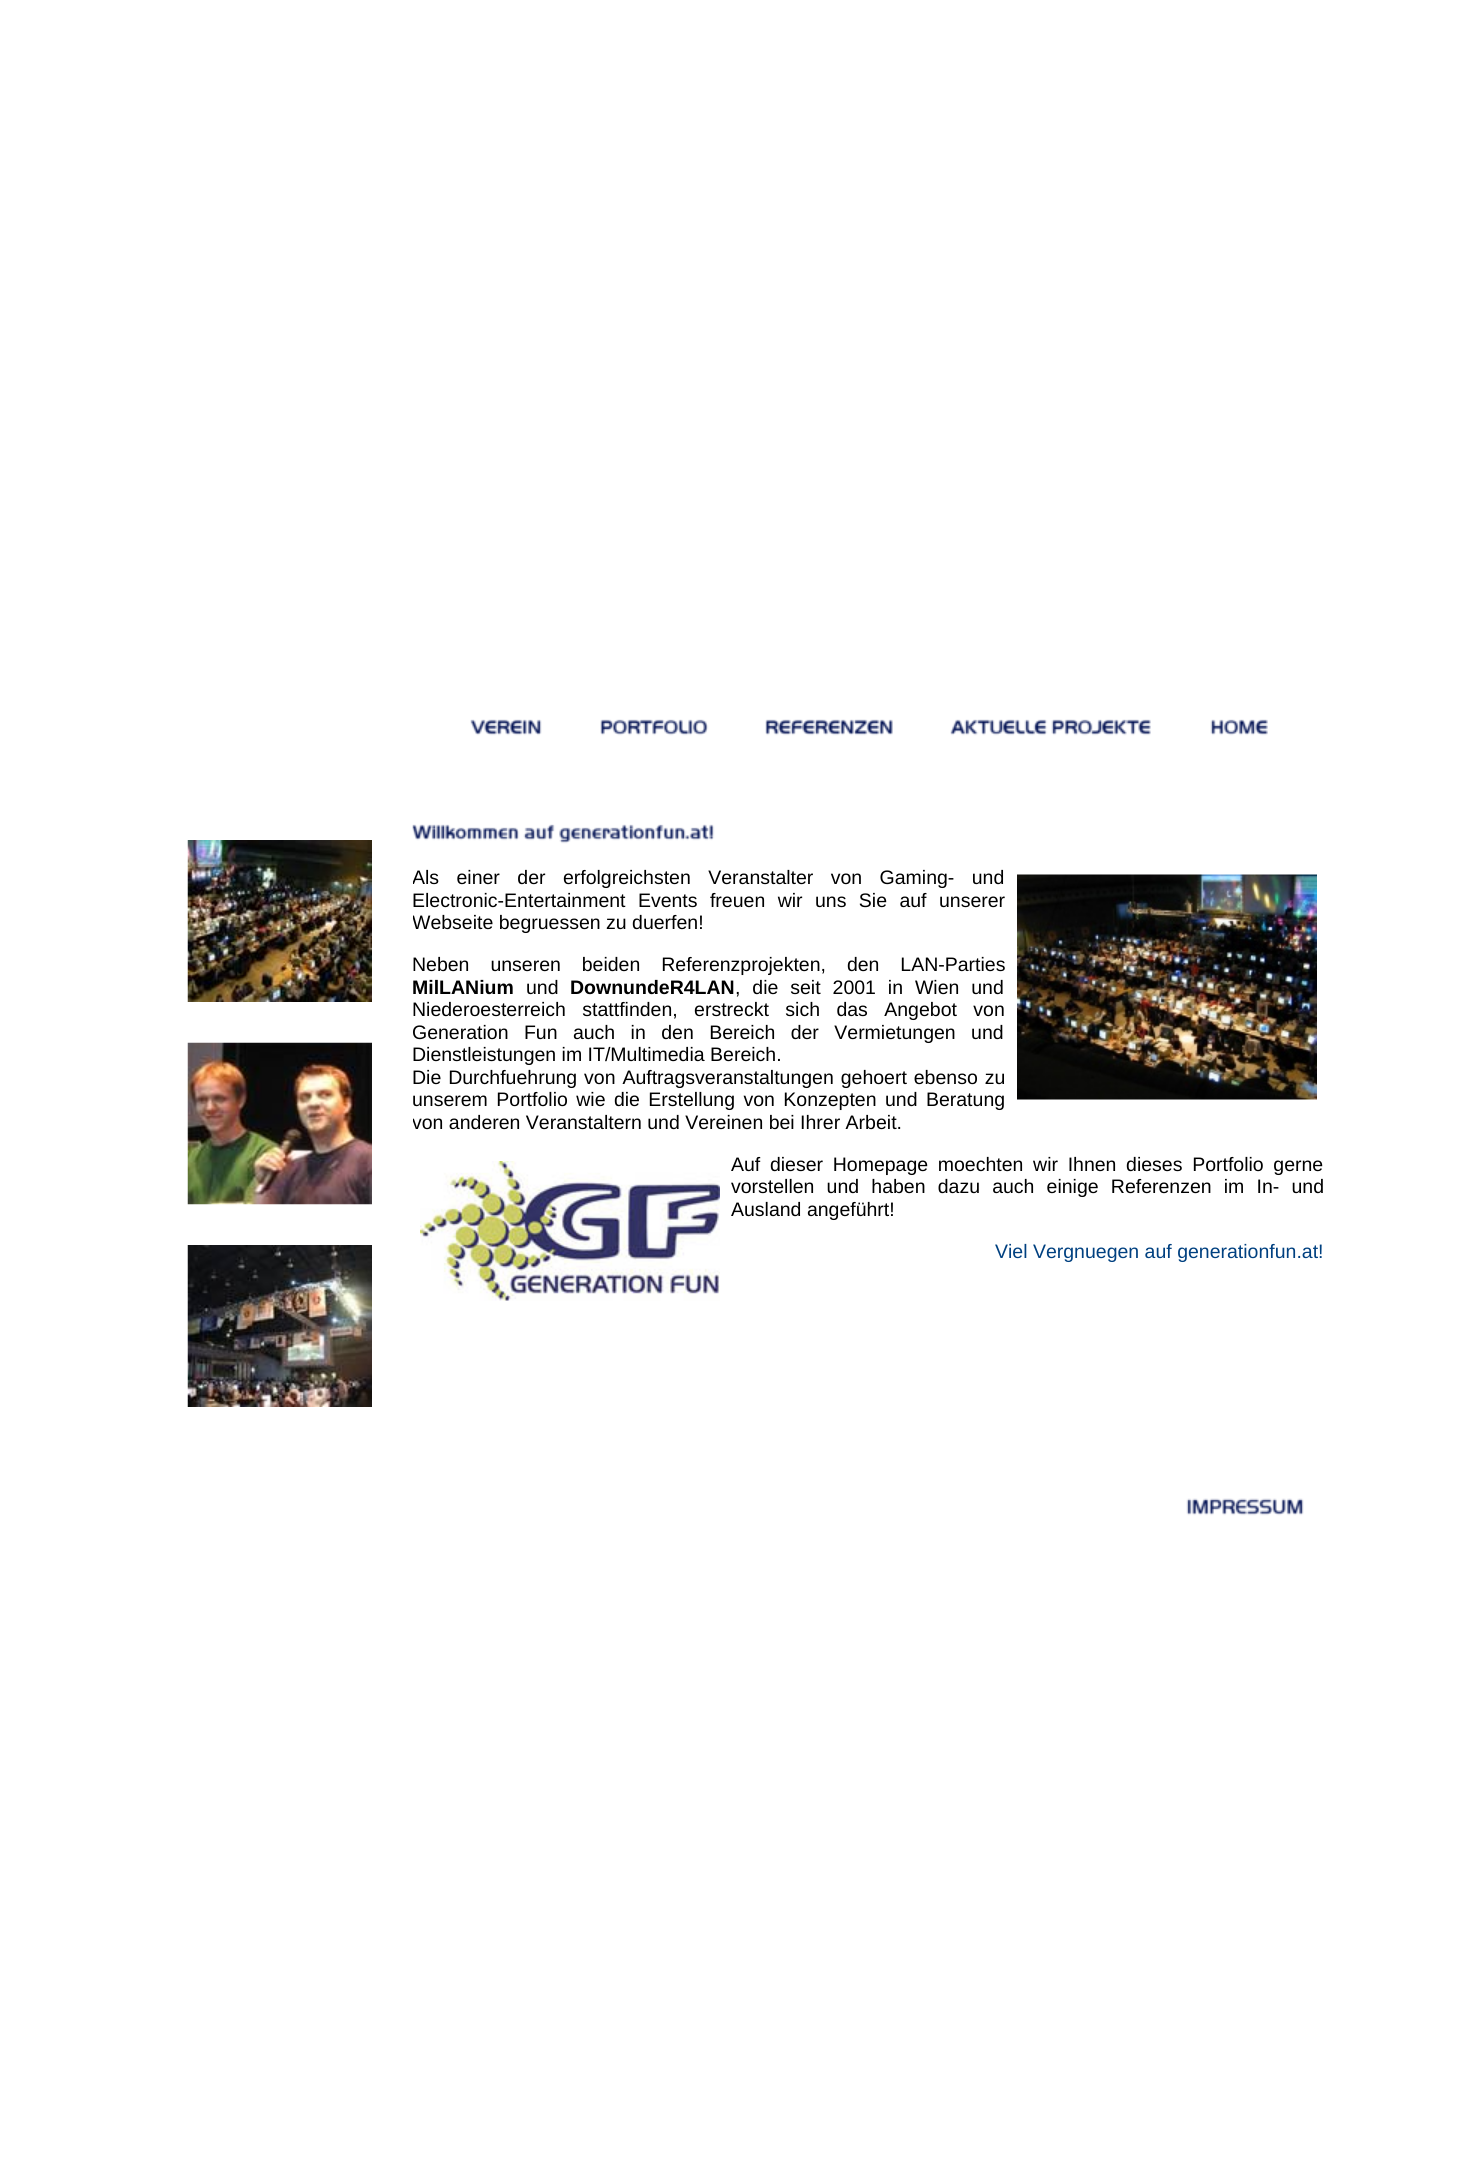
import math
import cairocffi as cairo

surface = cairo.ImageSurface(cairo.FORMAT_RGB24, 1473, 2177)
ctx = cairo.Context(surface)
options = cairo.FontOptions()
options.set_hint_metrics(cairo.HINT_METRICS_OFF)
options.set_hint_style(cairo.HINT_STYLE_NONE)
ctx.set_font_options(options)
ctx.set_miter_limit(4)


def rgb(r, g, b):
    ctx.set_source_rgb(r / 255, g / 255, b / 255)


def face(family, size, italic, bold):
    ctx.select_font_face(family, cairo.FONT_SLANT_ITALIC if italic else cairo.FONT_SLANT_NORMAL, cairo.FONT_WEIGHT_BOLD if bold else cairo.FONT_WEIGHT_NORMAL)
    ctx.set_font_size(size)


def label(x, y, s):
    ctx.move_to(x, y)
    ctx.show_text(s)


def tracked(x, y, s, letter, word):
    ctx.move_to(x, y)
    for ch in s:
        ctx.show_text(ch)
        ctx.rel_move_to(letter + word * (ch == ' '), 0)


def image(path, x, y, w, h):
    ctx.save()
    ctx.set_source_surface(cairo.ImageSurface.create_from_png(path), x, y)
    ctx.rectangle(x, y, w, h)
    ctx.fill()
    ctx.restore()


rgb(255, 255, 255)
ctx.paint()
image('image0.png', 470, 719, 72, 17)
image('image1.png', 600, 719, 109, 17)
image('image2.png', 765, 719, 128, 17)
image('image3.png', 950, 719, 201, 17)
image('image4.png', 1210, 719, 58, 17)
image('image5.png', 187, 840, 185, 162)
image('image6.png', 187, 1042, 185, 163)
image('image7.png', 187, 1245, 185, 162)
image('image8.png', 412, 824, 303, 20)
ctx.save()
ctx.rectangle(413, 818, 912, 606)
ctx.clip()
face('Liberation Sans', 19.5, 0, 0)
rgb(0, 0, 0)
tracked(412, 884, 'Als einer der erfolgreichsten Veranstalter von Gaming- und', 0, 12)
ctx.restore()
image('image9.png', 1017, 874, 300, 226)
face('Liberation Sans', 19.5, 0, 0)
rgb(0, 0, 0)
tracked(412, 907, 'Electronic-Entertainment Events freuen wir uns Sie auf unserer', 0, 7)
ctx.save()
ctx.rectangle(413, 818, 912, 606)
ctx.clip()
label(412, 929, 'Webseite begruessen zu duerfen!')
ctx.restore()
tracked(412, 971, 'Neben unseren beiden Referenzprojekten, den LAN-Parties', 0, 15.5)
face('Liberation Sans', 19.5, 0, 1)
label(412, 994, 'MilLANium')
face('Liberation Sans', 19.5, 0, 0)
label(526, 994, 'und')
face('Liberation Sans', 19.5, 0, 1)
label(570, 994, 'DownundeR4LAN')
face('Liberation Sans', 19.5, 0, 0)
tracked(735, 994, ', die seit 2001 in Wien und', 0, 6.5)
tracked(412, 1016, 'Niederoesterreich stattfinden, erstreckt sich das Angebot von', 0, 11)
ctx.save()
ctx.rectangle(413, 818, 912, 606)
ctx.clip()
tracked(412, 1039, 'Generation Fun auch in den Bereich der Vermietungen und', 0, 10)
ctx.restore()
label(412, 1061, 'Dienstleistungen im IT/Multimedia Bereich.')
tracked(412, 1084, 'Die Durchfuehrung von Auftragsveranstaltungen gehoert ebenso zu', 0, 1.5)
tracked(412, 1106, 'unserem Portfolio wie die Erstellung von Konzepten und Beratung', 0, 3)
ctx.save()
ctx.rectangle(413, 818, 912, 606)
ctx.clip()
label(412, 1129, 'von anderen Veranstaltern und Vereinen bei Ihrer Arbeit.')
ctx.restore()
image('image10.png', 420, 1161, 300, 140)
tracked(731, 1171, 'Auf dieser Homepage moechten wir Ihnen dieses Portfolio gerne', 0, 4.25)
tracked(731, 1193, 'vorstellen und haben dazu auch einige Referenzen im In- und', 0, 6.75)
label(731, 1216, 'Ausland angeführt!')
rgb(0, 64, 128)
label(995, 1258, 'Viel Vergnuegen auf generationfun.at!')
image('image11.png', 1186, 1498, 118, 18)
surface.write_to_png('render.png')
